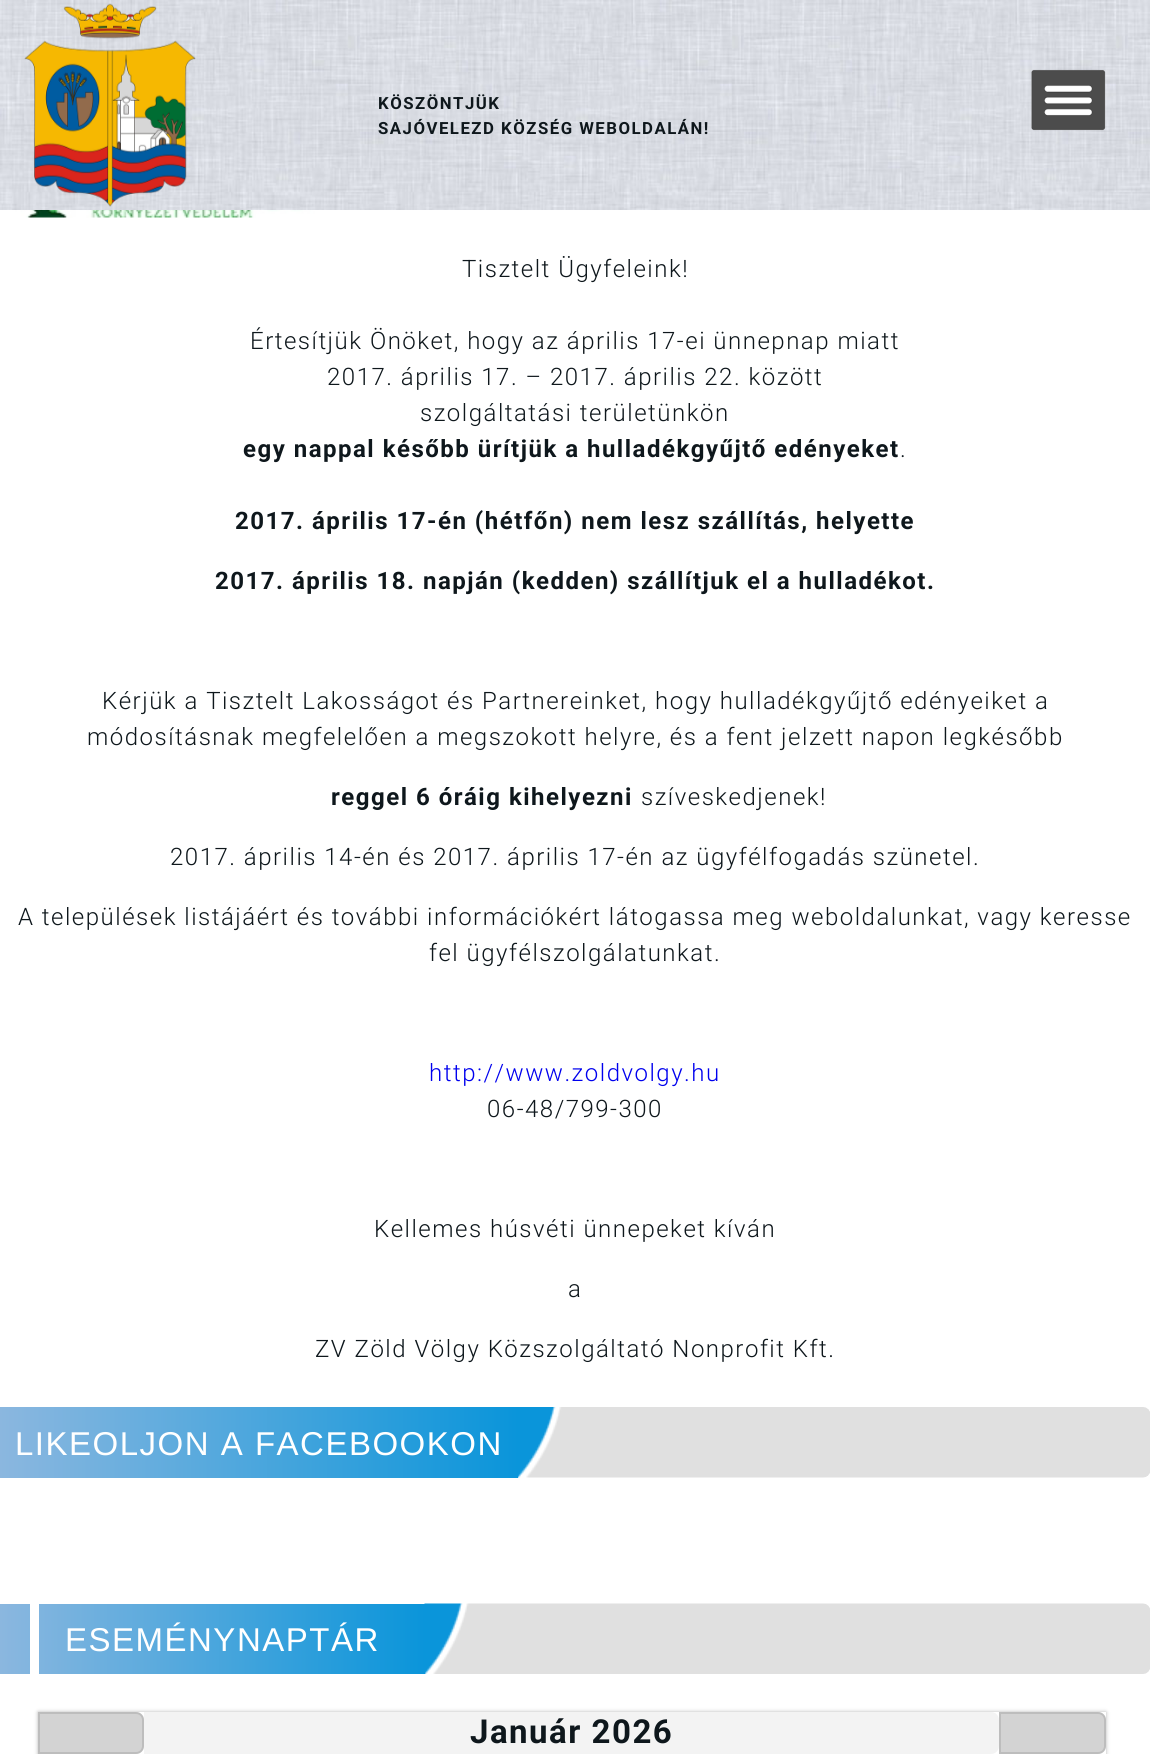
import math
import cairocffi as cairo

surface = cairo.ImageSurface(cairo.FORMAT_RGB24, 1150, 1754)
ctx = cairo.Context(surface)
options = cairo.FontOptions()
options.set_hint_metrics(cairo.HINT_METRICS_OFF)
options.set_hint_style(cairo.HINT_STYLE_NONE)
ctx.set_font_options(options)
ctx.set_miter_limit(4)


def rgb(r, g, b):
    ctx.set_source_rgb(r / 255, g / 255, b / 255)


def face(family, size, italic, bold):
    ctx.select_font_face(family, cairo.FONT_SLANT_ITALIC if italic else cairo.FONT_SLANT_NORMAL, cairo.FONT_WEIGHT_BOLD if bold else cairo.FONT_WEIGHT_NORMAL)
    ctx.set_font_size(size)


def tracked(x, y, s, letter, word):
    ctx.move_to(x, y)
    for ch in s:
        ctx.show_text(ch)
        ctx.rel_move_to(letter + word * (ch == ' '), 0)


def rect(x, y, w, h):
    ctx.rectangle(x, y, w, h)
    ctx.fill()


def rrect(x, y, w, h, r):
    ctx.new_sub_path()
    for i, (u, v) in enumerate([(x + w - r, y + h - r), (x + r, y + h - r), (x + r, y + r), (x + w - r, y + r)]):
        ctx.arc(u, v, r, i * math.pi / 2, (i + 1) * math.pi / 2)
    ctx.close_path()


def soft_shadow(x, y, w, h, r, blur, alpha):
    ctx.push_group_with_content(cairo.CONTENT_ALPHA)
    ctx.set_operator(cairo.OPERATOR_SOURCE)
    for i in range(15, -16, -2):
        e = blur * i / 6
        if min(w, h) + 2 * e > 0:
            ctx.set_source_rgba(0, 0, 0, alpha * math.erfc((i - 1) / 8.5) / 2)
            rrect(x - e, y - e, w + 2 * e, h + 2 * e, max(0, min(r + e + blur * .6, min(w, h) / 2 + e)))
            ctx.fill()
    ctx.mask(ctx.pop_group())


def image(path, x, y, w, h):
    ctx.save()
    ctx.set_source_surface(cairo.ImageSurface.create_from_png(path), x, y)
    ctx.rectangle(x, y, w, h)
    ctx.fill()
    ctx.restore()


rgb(255, 255, 255)
ctx.paint()
image('image0.png', 0, 0, 1150, 210)
image('image1.png', 24, 3, 172, 204)
face('Roboto', 16.75, 0, 1)
rgb(14, 23, 28)
tracked(378, 109, 'KÖSZÖNTJÜK', 1.5, 0)
tracked(378, 134, 'SAJÓVELEZD KÖZSÉG WEBOLDALÁN!', 1.5, 0)
image('image2.png', 1031, 69, 75, 62)
image('image3.png', 15, 210, 300, 8)
face('Roboto Light', 24, 0, 0)
tracked(462, 277, 'Tisztelt Ügyfeleink!', 1.5, 0)
tracked(250, 349, 'Értesítjük Önöket, hogy az április 17-ei ünnepnap miatt', 1.5, 0)
tracked(327, 385, '2017. április 17. – 2017. április 22. között', 1.5, 0)
tracked(420, 421, 'szolgáltatási területünkön', 1.5, 0)
face('Roboto', 24, 0, 1)
tracked(243, 457, 'egy nappal később ürítjük a hulladékgyűjtő edényeket', 1.5, 0)
face('Roboto Light', 24, 0, 0)
tracked(900, 457, '.', 1.5, 0)
face('Roboto', 24, 0, 1)
tracked(235, 529, '2017. április 17-én (hétfőn) nem lesz szállítás, helyette', 1.5, 0)
tracked(215, 589, '2017. április 18. napján (kedden) szállítjuk el a hulladékot.', 1.5, 0)
face('Roboto Light', 24, 0, 0)
tracked(102, 709, 'Kérjük a Tisztelt Lakosságot és Partnereinket, hogy hulladékgyűjtő edényeiket a', 1.5, 0)
tracked(87, 745, 'módosításnak megfelelően a megszokott helyre, és a fent jelzett napon legkésőbb', 1.5, 0)
face('Roboto', 24, 0, 1)
tracked(331, 805, 'reggel 6 óráig kihelyezni', 1.5, 0)
face('Roboto Light', 24, 0, 0)
tracked(641, 805, 'szíveskedjenek!', 1.5, 0)
tracked(170, 865, '2017. április 14-én és 2017. április 17-én az ügyfélfogadás szünetel.', 1.5, 0)
tracked(18, 925, 'A települések listájáért és további információkért látogassa meg weboldalunkat, vagy keresse', 1.5, 0)
tracked(429, 961, 'fel ügyfélszolgálatunkat.', 1.5, 0)
rgb(0, 0, 238)
tracked(429, 1081, 'http://www.zoldvolgy.hu', 1.5, 0)
rgb(14, 23, 28)
tracked(487, 1117, '06-48/799-300', 1.5, 0)
tracked(374, 1237, 'Kellemes húsvéti ünnepeket kíván', 1.5, 0)
tracked(568, 1297, 'a', 1.5, 0)
tracked(315, 1357, 'ZV Zöld Völgy Közszolgáltató Nonprofit Kft.', 1.5, 0)
gradient = cairo.LinearGradient(0, 1442, 518, 1442)
gradient.add_color_stop_rgba(0, 0.545, 0.718, 0.875, 1)
gradient.add_color_stop_rgba(1, 0.039, 0.584, 0.855, 1)
ctx.set_source(gradient)
rect(0, 1407, 518, 71)
face('Liberation Sans', 33, 0, 0)
rgb(255, 255, 255)
tracked(15, 1455, 'LIKEOLJON A FACEBOOKON', 1.5, 0)
image('image4.png', 518, 1407, 632, 71)
gradient = cairo.LinearGradient(0, 1639, 425, 1639)
gradient.add_color_stop_rgba(0, 0.545, 0.718, 0.875, 1)
gradient.add_color_stop_rgba(1, 0.039, 0.584, 0.855, 1)
ctx.set_source(gradient)
rect(0, 1604, 425, 70)
rgb(255, 255, 255)
rect(30, 1604, 9, 70)
tracked(65, 1651, 'ESEMÉNYNAPTÁR', 1.5, 0)
image('image5.png', 424, 1603, 726, 71)
ctx.save()
ctx.set_fill_rule(cairo.FILL_RULE_EVEN_ODD)
ctx.new_path()
ctx.move_to(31, 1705)
ctx.line_to(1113, 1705)
ctx.line_to(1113, 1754)
ctx.line_to(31, 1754)
ctx.close_path()
ctx.move_to(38, 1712)
ctx.line_to(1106, 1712)
ctx.line_to(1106, 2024)
ctx.line_to(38, 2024)
ctx.close_path()
ctx.clip()
rgb(128, 128, 128)
soft_shadow(38, 1712, 1068, 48, 0, 2, 0.58)
ctx.restore()
rgb(211, 211, 211)
ctx.new_path()
ctx.move_to(38, 1712)
ctx.line_to(136, 1712)
ctx.curve_to(140.5, 1712, 144, 1715.5, 144, 1720)
ctx.line_to(144, 1746)
ctx.curve_to(144, 1750.5, 140.5, 1754, 136, 1754)
ctx.line_to(38, 1754)
ctx.close_path()
ctx.fill()
ctx.new_path()
ctx.move_to(39, 1713)
ctx.line_to(136, 1713)
ctx.curve_to(140, 1713, 143, 1716, 143, 1720)
ctx.line_to(143, 1746)
ctx.curve_to(143, 1750, 140, 1753, 136, 1753)
ctx.line_to(39, 1753)
ctx.close_path()
ctx.set_source_rgba(0.502, 0.502, 0.502, 0.26)
ctx.stroke()
rgb(243, 243, 243)
ctx.new_path()
ctx.move_to(144, 1712)
ctx.line_to(991, 1712)
ctx.curve_to(995.5, 1712, 999, 1715.5, 999, 1720)
ctx.line_to(999, 1746)
ctx.curve_to(999, 1750.5, 995.5, 1754, 991, 1754)
ctx.line_to(144, 1754)
ctx.close_path()
ctx.fill()
face('Roboto', 33, 0, 1)
rgb(14, 23, 28)
tracked(470, 1743, 'Január 2026', 1.5, 0)
rgb(211, 211, 211)
ctx.new_path()
ctx.move_to(999, 1712)
ctx.line_to(1098, 1712)
ctx.curve_to(1102.5, 1712, 1106, 1715.5, 1106, 1720)
ctx.line_to(1106, 1746)
ctx.curve_to(1106, 1750.5, 1102.5, 1754, 1098, 1754)
ctx.line_to(999, 1754)
ctx.close_path()
ctx.fill()
ctx.new_path()
ctx.move_to(1000, 1713)
ctx.line_to(1098, 1713)
ctx.curve_to(1102, 1713, 1105, 1716, 1105, 1720)
ctx.line_to(1105, 1746)
ctx.curve_to(1105, 1750, 1102, 1753, 1098, 1753)
ctx.line_to(1000, 1753)
ctx.close_path()
ctx.set_source_rgba(0.502, 0.502, 0.502, 0.26)
ctx.stroke()
surface.write_to_png('render.png')
